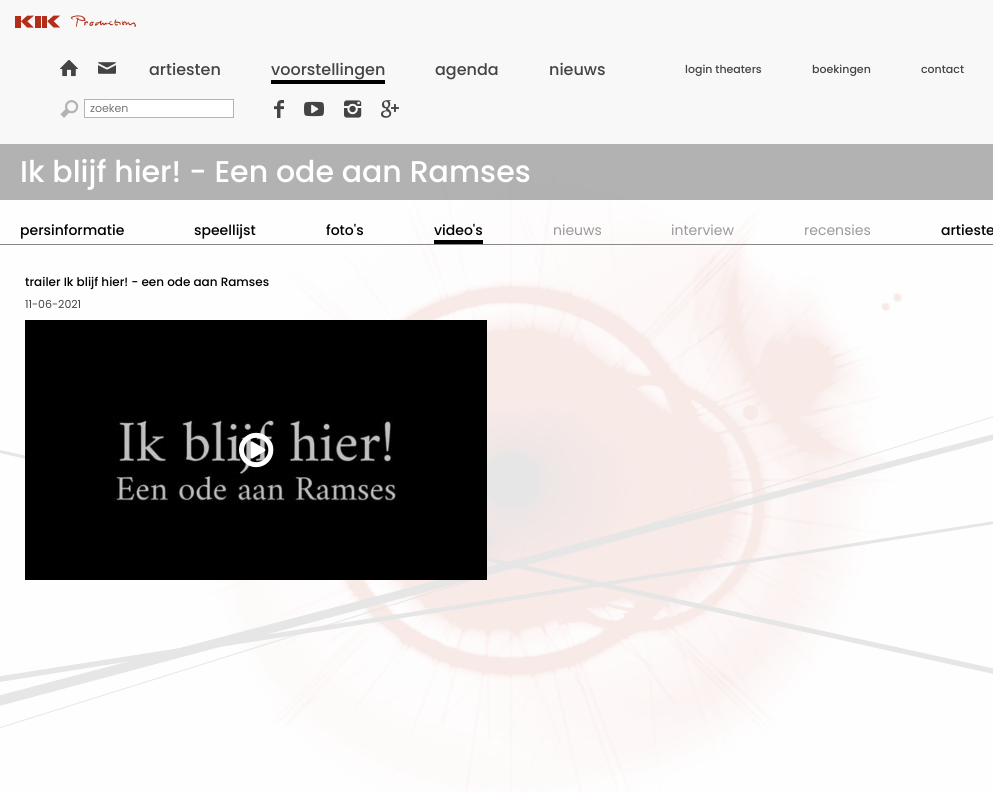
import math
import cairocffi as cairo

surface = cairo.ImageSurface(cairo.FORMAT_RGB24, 993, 792)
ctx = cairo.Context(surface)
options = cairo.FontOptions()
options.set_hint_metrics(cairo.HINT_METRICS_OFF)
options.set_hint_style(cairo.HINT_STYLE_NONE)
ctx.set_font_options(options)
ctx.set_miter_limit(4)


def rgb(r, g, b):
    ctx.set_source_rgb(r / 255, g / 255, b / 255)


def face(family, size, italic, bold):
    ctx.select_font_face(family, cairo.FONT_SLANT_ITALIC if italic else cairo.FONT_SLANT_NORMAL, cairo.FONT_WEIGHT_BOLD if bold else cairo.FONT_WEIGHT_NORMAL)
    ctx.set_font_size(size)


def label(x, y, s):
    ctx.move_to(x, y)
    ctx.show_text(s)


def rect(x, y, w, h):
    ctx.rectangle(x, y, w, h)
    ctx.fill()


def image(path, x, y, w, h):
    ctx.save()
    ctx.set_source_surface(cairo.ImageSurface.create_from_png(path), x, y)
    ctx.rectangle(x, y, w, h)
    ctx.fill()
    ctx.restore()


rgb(248, 248, 248)
ctx.paint()
rgb(254, 254, 254)
rect(0, 144, 993, 18)
image('image0.png', 0, 162, 993, 630)
image('image1.png', 15, 15, 121, 13)
image('image2.png', 60, 60, 18, 17)
image('image3.png', 98, 62, 18, 12)
face('Poppins Medium', 16, 0, 0)
rgb(68, 68, 68)
label(149, 75, 'artiesten')
rgb(0, 0, 0)
rect(271, 80, 114, 4)
rgb(68, 68, 68)
label(271, 75, 'voorstellingen')
label(435, 75, 'agenda')
label(549, 75, 'nieuws')
face('Poppins Medium', 11, 0, 0)
label(685, 73, 'login theaters')
label(812, 73, 'boekingen')
label(921, 73, 'contact')
image('image4.png', 60, 100, 19, 18)
rgb(255, 255, 255)
ctx.rectangle(84.5, 99.5, 149, 18)
ctx.fill_preserve()
rgb(179, 179, 179)
ctx.set_line_width(1)
ctx.stroke()
face('Poppins', 11, 0, 0)
rgb(117, 117, 117)
label(90, 112, 'zoeken')
image('image5.png', 274, 100, 10, 18)
image('image6.png', 304, 101, 20, 16)
image('image7.png', 344, 100, 18, 18)
image('image8.png', 381, 100, 18, 18)
ctx.set_source_rgba(0.4, 0.4, 0.4, 0.5)
rect(0, 144, 993, 56)
face('Poppins Medium', 30, 0, 0)
rgb(255, 255, 255)
label(20, 182, 'Ik blijf hier! - Een ode aan Ramses')
rgb(136, 136, 136)
rect(0, 244, 993, 1)
face('Poppins Medium', 14, 0, 0)
rgb(0, 0, 0)
label(20, 235, 'persinformatie')
label(194, 235, 'speellijst')
label(326, 235, 'foto\'s')
rect(434, 240, 49, 4)
label(434, 235, 'video\'s')
face('Poppins', 14, 0, 0)
rgb(153, 153, 153)
label(553, 235, 'nieuws')
label(671, 235, 'interview')
label(804, 235, 'recensies')
face('Poppins Medium', 14, 0, 0)
rgb(0, 0, 0)
label(941, 235, 'artieste')
face('Poppins Medium', 12, 0, 0)
label(25, 286, 'trailer Ik blijf hier! - een ode aan Ramses')
face('Poppins', 11, 0, 0)
rgb(68, 68, 68)
label(25, 308, '11-06-2021')
image('image9.png', 25, 320, 462, 260)
image('image10.png', 239, 432, 35, 36)
surface.write_to_png('render.png')
